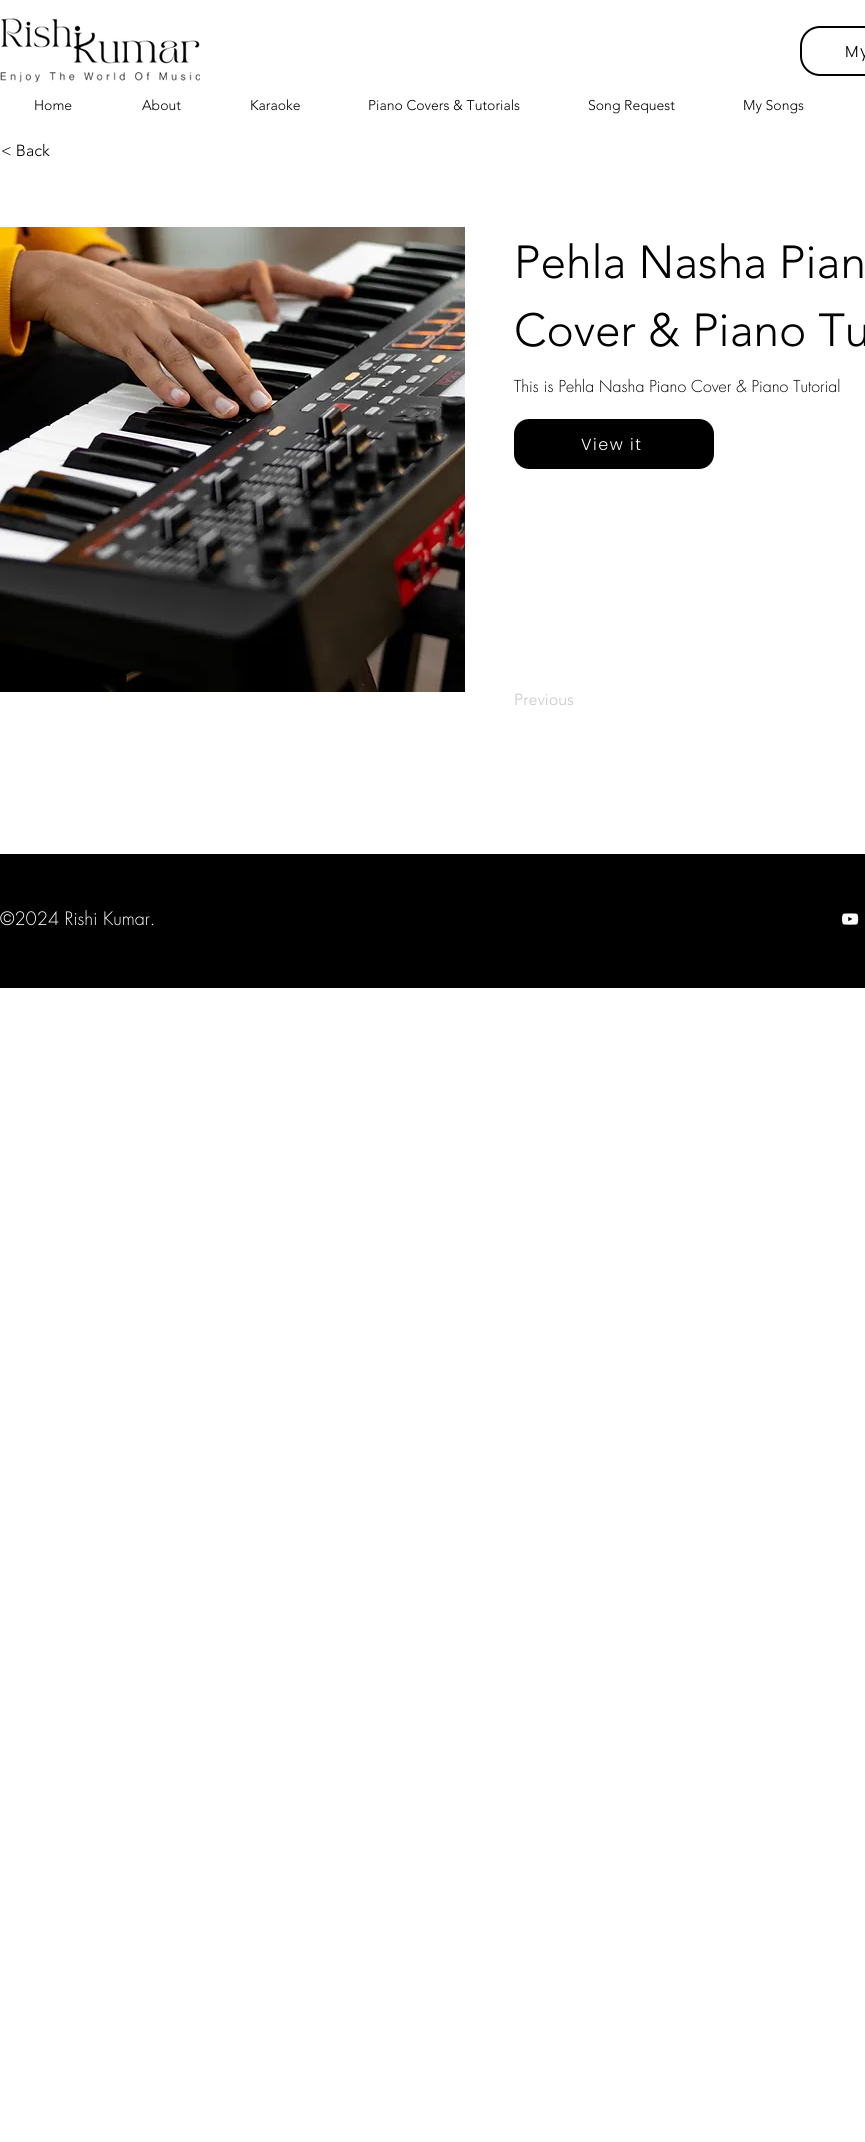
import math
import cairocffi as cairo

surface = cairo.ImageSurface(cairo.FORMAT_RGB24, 865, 2142)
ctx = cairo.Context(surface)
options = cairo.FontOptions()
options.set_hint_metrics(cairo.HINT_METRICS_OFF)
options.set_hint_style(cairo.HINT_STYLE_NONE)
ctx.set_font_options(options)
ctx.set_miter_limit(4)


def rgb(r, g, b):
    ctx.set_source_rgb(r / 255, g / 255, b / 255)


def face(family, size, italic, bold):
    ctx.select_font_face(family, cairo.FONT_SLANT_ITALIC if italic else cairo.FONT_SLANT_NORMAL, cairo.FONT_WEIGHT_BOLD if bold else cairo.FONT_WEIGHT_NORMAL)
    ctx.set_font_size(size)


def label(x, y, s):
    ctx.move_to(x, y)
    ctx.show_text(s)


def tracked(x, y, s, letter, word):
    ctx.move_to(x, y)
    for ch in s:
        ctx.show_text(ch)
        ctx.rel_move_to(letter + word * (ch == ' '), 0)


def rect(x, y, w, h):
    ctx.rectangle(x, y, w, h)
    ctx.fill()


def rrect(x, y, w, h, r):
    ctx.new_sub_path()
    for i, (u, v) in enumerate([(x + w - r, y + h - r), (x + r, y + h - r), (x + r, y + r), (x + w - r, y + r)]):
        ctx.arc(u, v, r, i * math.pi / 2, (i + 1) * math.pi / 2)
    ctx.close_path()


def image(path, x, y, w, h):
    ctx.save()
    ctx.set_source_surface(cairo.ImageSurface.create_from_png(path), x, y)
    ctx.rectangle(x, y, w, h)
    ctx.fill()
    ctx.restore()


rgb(255, 255, 255)
ctx.paint()
image('image0.png', 0, 18, 200, 64)
rrect(801, 27, 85, 48, 19)
rgb(0, 0, 0)
ctx.stroke()
face('Poppins Light', 16, 0, 0)
tracked(845, 57, 'My', 1.5, 0)
face('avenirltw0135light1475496 Light', 14, 0, 0)
label(34, 110, 'Home')
label(142, 110, 'About')
label(250, 110, 'Karaoke')
label(368, 110, 'Piano Covers & Tutorials')
label(588, 110, 'Song Request')
label(743, 110, 'My Songs')
face('avenirltw0135light1475496 Light', 16, 0, 0)
label(1, 156, '< Back')
image('image1.png', 0, 227, 465, 465)
face('avenirltw0135light1475496 Light', 46, 0, 0)
label(514, 278, 'Pehla Nasha Pian')
label(514, 346, 'Cover & Piano Tu')
face('futura Light', 16, 0, 0)
label(514, 392, 'This is Pehla Nasha Piano Cover & Piano Tutorial')
rrect(515, 420, 198, 48, 14)
ctx.fill_preserve()
ctx.stroke()
face('Poppins Light', 16, 0, 0)
rgb(255, 255, 255)
tracked(581, 450, 'View it', 1.5, 0)
face('avenirltw0135light1475496 Light', 16, 0, 0)
rgb(199, 199, 199)
label(514, 705, 'Previous')
rgb(0, 0, 0)
rect(0, 854, 865, 134)
face('futura Light', 18, 0, 0)
rgb(255, 255, 255)
label(0, 925, '©2024 Rishi Kumar.')
image('image2.png', 841, 913, 18, 12)
surface.write_to_png('render.png')
